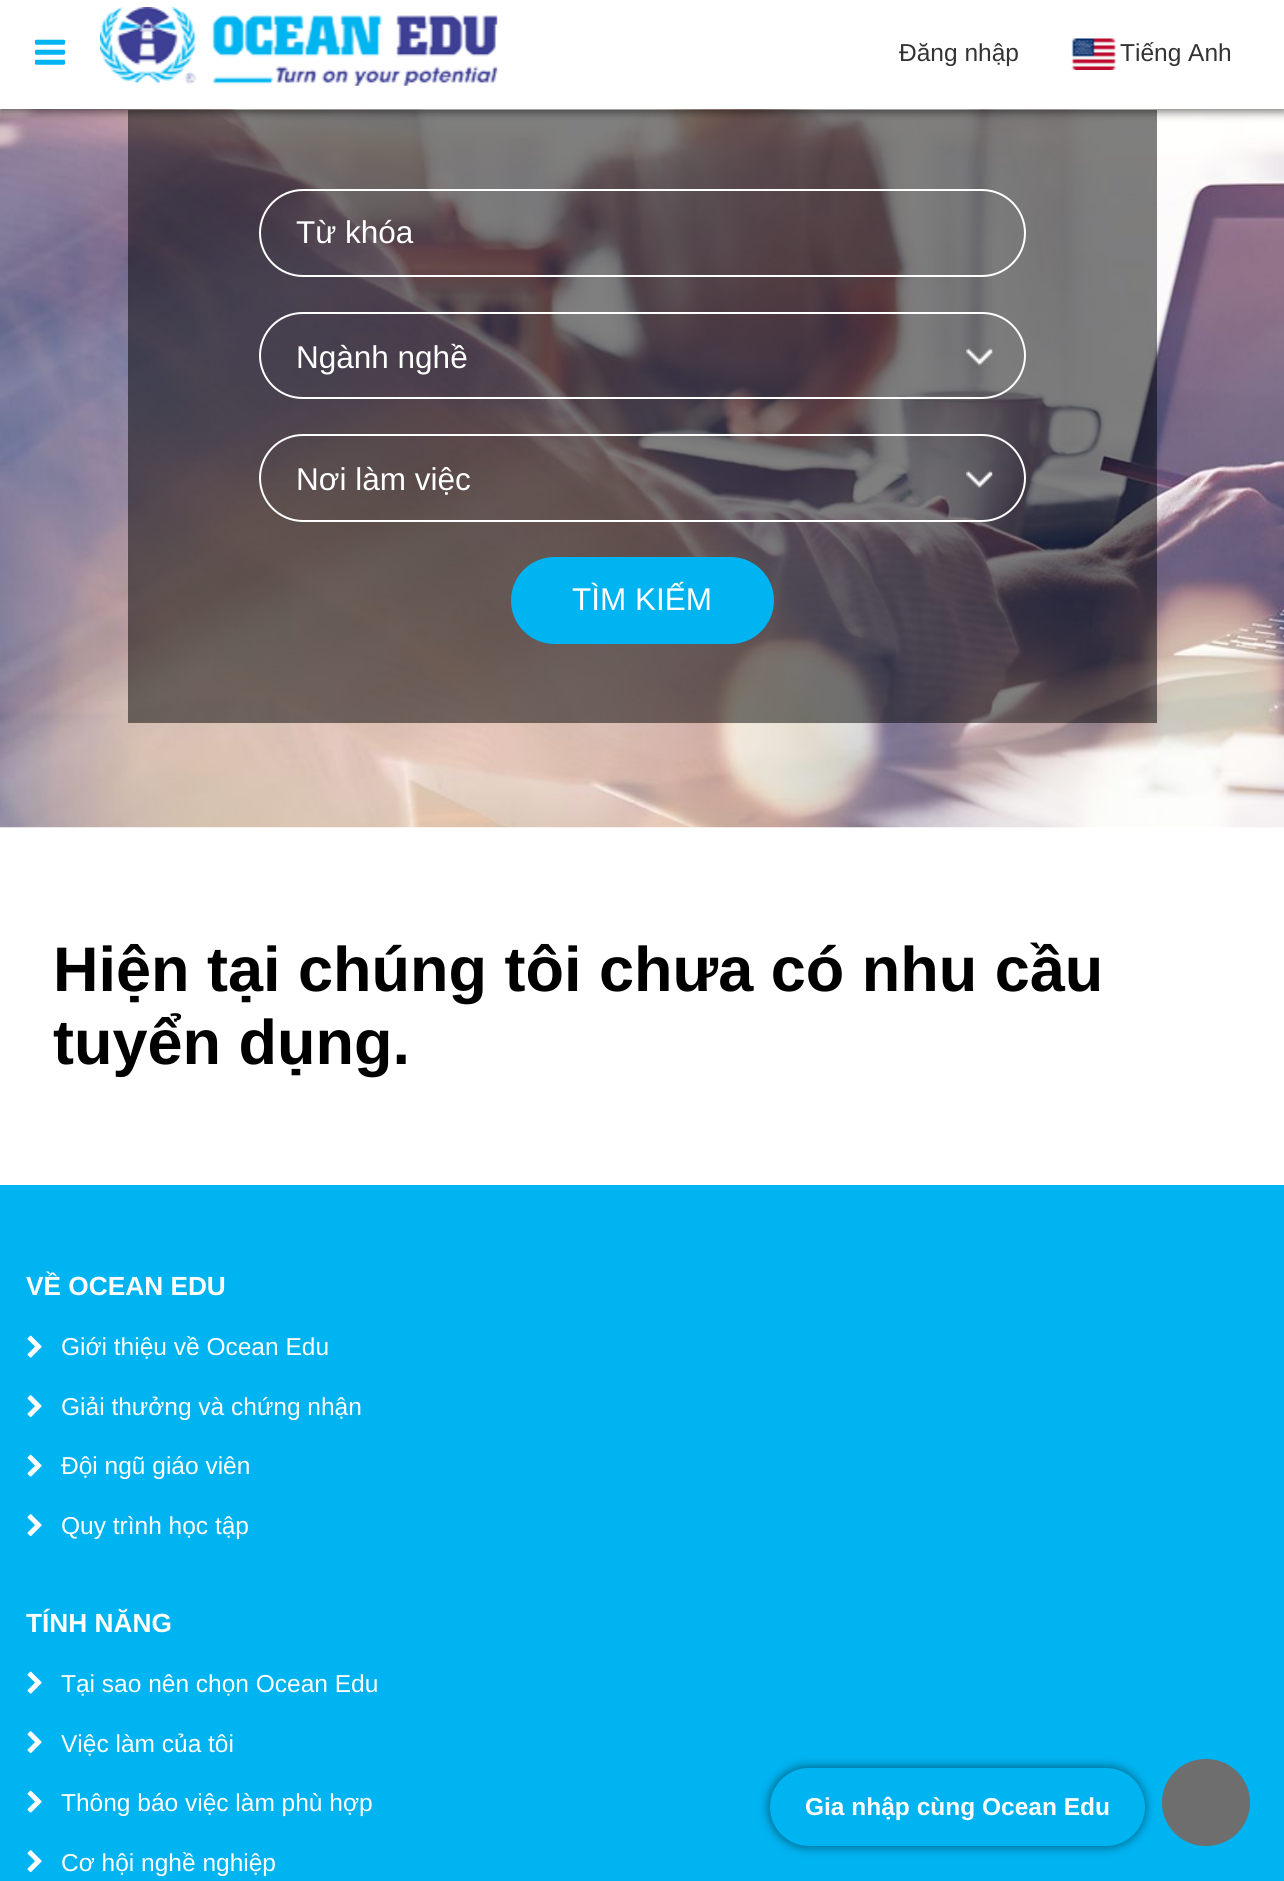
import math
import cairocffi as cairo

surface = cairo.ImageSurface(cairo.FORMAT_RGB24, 1284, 1881)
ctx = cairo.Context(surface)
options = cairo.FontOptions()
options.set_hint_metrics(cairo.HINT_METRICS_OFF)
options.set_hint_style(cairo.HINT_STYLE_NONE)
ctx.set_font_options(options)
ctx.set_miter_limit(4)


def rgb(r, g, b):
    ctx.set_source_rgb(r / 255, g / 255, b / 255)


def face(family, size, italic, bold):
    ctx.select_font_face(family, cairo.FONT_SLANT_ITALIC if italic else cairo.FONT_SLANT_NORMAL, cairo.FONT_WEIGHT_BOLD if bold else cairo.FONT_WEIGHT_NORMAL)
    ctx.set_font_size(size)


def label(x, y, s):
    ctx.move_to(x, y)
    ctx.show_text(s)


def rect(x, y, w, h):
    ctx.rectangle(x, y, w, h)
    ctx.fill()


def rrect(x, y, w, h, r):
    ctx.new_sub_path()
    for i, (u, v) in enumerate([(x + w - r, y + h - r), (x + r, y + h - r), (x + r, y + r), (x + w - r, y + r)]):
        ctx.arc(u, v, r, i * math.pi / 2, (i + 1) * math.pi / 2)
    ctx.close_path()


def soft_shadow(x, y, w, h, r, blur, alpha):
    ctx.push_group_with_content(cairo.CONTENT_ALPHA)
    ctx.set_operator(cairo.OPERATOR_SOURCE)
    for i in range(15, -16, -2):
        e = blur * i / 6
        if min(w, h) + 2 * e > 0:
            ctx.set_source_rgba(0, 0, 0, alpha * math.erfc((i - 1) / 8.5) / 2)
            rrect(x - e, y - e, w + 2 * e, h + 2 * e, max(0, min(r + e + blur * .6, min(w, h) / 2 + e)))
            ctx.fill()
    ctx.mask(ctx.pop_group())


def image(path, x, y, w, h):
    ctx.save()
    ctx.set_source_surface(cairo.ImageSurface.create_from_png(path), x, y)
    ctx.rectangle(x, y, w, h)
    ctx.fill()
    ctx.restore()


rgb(255, 255, 255)
ctx.paint()
image('image3.png', 0, 109, 1284, 719)
ctx.set_source_rgba(0, 0, 0, 0.5)
rect(128, 110, 1029, 613)
rgb(0, 0, 0)
soft_shadow(0, 4, 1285, 108, 0, 4.5, 0.5)
rgb(255, 255, 255)
rect(0, 0, 1284, 109)
image('image0.png', 35, 39, 30, 26)
image('image1.png', 100, 7, 398, 79)
face('Liberation Sans', 24.5, 0, 0)
rgb(51, 51, 51)
label(899, 61, 'Đăng nhập')
image('image2.png', 1071, 38, 45, 32)
label(1120, 61, 'Tiếng Anh')
rrect(260, 190, 765, 86, 43)
rgb(255, 255, 255)
ctx.stroke()
face('Liberation Sans', 31.5, 0, 0)
label(296, 243, 'Từ khóa')
rrect(260, 313, 765, 85, 42.5)
ctx.stroke()
label(296, 368, 'Ngành nghề')
image('image4.png', 966, 348, 27, 18)
rrect(260, 435, 765, 86, 43)
ctx.stroke()
label(296, 490, 'Nơi làm việc')
image('image5.png', 966, 470, 27, 18)
rgb(0, 179, 241)
rrect(511, 557, 263, 87, 43.5)
ctx.fill()
rgb(255, 255, 255)
label(572, 610, 'TÌM KIẾM')
face('Liberation Sans', 63, 0, 1)
rgb(0, 0, 0)
label(53, 991, 'Hiện tại chúng tôi chưa có nhu cầu')
label(53, 1064, 'tuyển dụng.')
rgb(0, 179, 241)
rect(0, 1185, 1284, 696)
face('Liberation Sans', 26.25, 0, 1)
rgb(255, 255, 255)
label(26, 1295, 'VỀ OCEAN EDU')
image('image6.png', 27, 1335, 15, 23)
face('Liberation Sans', 24.5, 0, 0)
label(61, 1355, 'Giới thiệu về Ocean Edu')
image('image7.png', 27, 1395, 15, 23)
label(61, 1415, 'Giải thưởng và chứng nhận')
image('image6.png', 27, 1454, 15, 23)
label(61, 1474, 'Đội ngũ giáo viên')
image('image7.png', 27, 1514, 15, 23)
label(61, 1534, 'Quy trình học tập')
face('Liberation Sans', 26.25, 0, 1)
label(26, 1632, 'TÍNH NĂNG')
image('image6.png', 27, 1671, 15, 23)
face('Liberation Sans', 24.5, 0, 0)
label(61, 1692, 'Tại sao nên chọn Ocean Edu')
image('image7.png', 27, 1731, 15, 23)
label(61, 1752, 'Việc làm của tôi')
image('image6.png', 27, 1790, 15, 23)
label(61, 1811, 'Thông báo việc làm phù hợp')
image('image7.png', 27, 1850, 15, 23)
label(61, 1871, 'Cơ hội nghề nghiệp')
rgb(0, 0, 0)
soft_shadow(768, 1766, 378, 82, 41, 4.5, 0.4)
rgb(0, 179, 241)
rrect(770, 1768, 375, 78, 39)
ctx.fill()
face('Liberation Sans', 24.5, 0, 1)
rgb(255, 255, 255)
label(805, 1815, 'Gia nhập cùng Ocean Edu')
rgb(110, 110, 110)
rrect(1162, 1759, 88, 87, 43.5)
ctx.fill()
surface.write_to_png('render.png')
